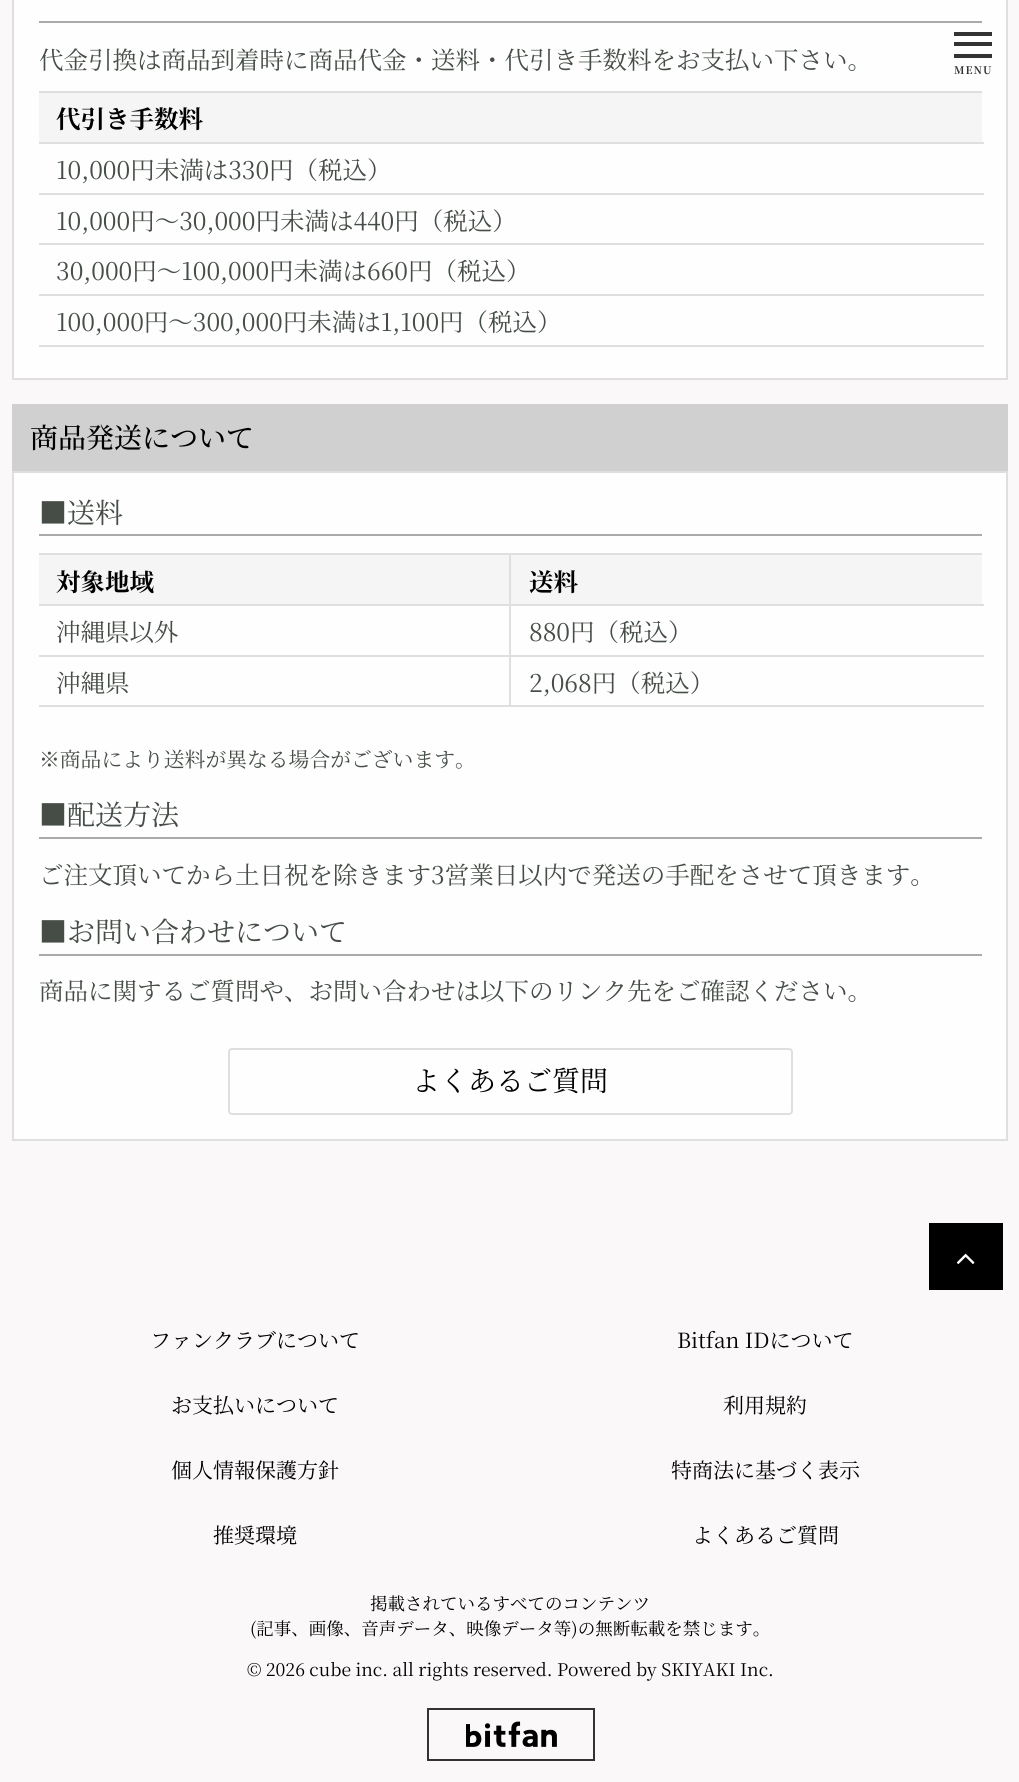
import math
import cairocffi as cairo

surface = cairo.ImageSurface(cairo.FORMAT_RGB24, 1019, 1782)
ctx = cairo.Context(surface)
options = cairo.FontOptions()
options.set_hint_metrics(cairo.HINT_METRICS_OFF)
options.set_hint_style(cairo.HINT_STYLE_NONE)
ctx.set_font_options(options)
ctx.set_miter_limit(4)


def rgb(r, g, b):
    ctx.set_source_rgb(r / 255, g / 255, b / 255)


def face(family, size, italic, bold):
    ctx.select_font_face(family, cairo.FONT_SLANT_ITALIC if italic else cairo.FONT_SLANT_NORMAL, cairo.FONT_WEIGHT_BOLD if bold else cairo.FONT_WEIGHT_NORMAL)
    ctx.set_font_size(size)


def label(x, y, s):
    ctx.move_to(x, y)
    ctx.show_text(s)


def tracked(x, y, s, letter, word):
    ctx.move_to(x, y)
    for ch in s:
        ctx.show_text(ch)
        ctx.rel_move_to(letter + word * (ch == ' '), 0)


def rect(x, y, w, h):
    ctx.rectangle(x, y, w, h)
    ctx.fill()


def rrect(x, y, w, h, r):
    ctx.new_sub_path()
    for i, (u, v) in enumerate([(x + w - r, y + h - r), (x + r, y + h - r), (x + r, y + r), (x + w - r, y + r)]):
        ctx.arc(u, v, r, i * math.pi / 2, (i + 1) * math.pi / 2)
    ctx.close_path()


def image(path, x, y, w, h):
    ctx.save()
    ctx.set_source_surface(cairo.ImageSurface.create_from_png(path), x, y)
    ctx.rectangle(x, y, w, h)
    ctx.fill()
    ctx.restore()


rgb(250, 248, 248)
ctx.paint()
rgb(254, 254, 254)
ctx.rectangle(13, -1, 994, 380)
ctx.fill_preserve()
rgb(223, 223, 223)
ctx.stroke()
rgb(170, 170, 170)
rect(39, 21, 943, 2)
face('Noto Serif JP', 24.5, 0, 0)
rgb(69, 77, 70)
label(39, 69, '代金引換は商品到着時に商品代金・送料・代引き手数料をお支払い下さい。')
rgb(223, 223, 223)
rect(39, 91, 943, 2)
rgb(245, 245, 245)
rect(39, 93, 943, 49)
face('Noto Serif JP', 24.5, 0, 1)
rgb(0, 0, 0)
label(56, 128, '代引き手数料')
rgb(223, 223, 223)
rect(39, 142, 945, 2)
face('Noto Serif JP', 24.5, 0, 0)
rgb(69, 77, 70)
label(56, 179, '10,000円未満は330円（税込）')
rgb(223, 223, 223)
rect(39, 193, 945, 2)
rgb(69, 77, 70)
label(56, 230, '10,000円～30,000円未満は440円（税込）')
rgb(223, 223, 223)
rect(39, 243, 945, 2)
rgb(69, 77, 70)
label(56, 280, '30,000円～100,000円未満は660円（税込）')
rgb(223, 223, 223)
rect(39, 294, 945, 2)
rect(39, 345, 945, 2)
rgb(69, 77, 70)
label(56, 331, '100,000円～300,000円未満は1,100円（税込）')
rgb(208, 208, 208)
rect(12, 404, 996, 67)
face('Noto Serif JP Medium', 28, 0, 0)
rgb(0, 0, 0)
label(30, 448, '商品発送について')
rgb(254, 254, 254)
ctx.rectangle(13, 472, 994, 668)
ctx.fill_preserve()
rgb(223, 223, 223)
ctx.stroke()
rgb(170, 170, 170)
rect(39, 534, 943, 2)
face('Noto Serif JP', 28, 0, 0)
rgb(69, 77, 70)
label(39, 523, '■送料')
rgb(223, 223, 223)
rect(39, 553, 943, 2)
rect(39, 705, 945, 2)
rgb(245, 245, 245)
rect(39, 555, 470, 49)
face('Noto Serif JP', 24.5, 0, 1)
rgb(0, 0, 0)
label(56, 591, '対象地域')
rgb(245, 245, 245)
rect(511, 555, 471, 49)
rgb(223, 223, 223)
rect(509, 604, 475, 2)
rect(509, 655, 475, 2)
rect(509, 655, 2, 52)
rect(39, 655, 472, 2)
rect(509, 604, 2, 52)
rect(39, 604, 472, 2)
rect(509, 553, 2, 53)
rgb(0, 0, 0)
label(529, 591, '送料')
face('Noto Serif JP', 24.5, 0, 0)
rgb(69, 77, 70)
label(56, 641, '沖縄県以外')
label(529, 641, '880円（税込）')
label(56, 692, '沖縄県')
label(529, 692, '2,068円（税込）')
face('Noto Serif JP', 20.8, 0, 0)
label(39, 767, '※商品により送料が異なる場合がございます。')
rgb(170, 170, 170)
rect(39, 837, 943, 2)
face('Noto Serif JP', 28, 0, 0)
rgb(69, 77, 70)
label(39, 825, '■配送方法')
face('Noto Serif JP', 24.5, 0, 0)
label(39, 884, 'ご注文頂いてから土日祝を除きます3営業日以内で発送の手配をさせて頂きます。')
rgb(170, 170, 170)
rect(39, 954, 943, 2)
face('Noto Serif JP', 28, 0, 0)
rgb(69, 77, 70)
label(39, 942, '■お問い合わせについて')
face('Noto Serif JP', 24.5, 0, 0)
label(39, 1000, '商品に関するご質問や、お問い合わせは以下のリンク先をご確認ください。')
rrect(229, 1049, 563, 65, 3)
rgb(223, 223, 223)
ctx.stroke()
face('Noto Serif JP', 28, 0, 0)
rgb(0, 0, 0)
label(412, 1091, 'よくあるご質問')
rgb(51, 51, 51)
rect(954, 42, 38, 4)
rect(954, 32, 38, 4)
rect(954, 54, 38, 4)
face('Noto Serif JP', 10.5, 0, 1)
tracked(954, 74, 'MENU', 1, 0)
rgb(0, 0, 0)
rect(929, 1223, 74, 67)
image('image0.png', 956, 1253, 19, 11)
face('Noto Serif JP', 21, 0, 0)
label(150, 1348, 'ファンクラブについて')
label(677, 1348, 'Bitfan IDについて')
label(171, 1413, 'お支払いについて')
label(723, 1413, '利用規約')
label(171, 1478, '個人情報保護方針')
label(671, 1478, '特商法に基づく表示')
label(213, 1543, '推奨環境')
label(692, 1543, 'よくあるご質問')
face('Noto Serif JP', 17.5, 0, 0)
label(370, 1610, '掲載されているすべてのコンテンツ')
label(250, 1635, '(記事、画像、音声データ、映像データ等)の無断転載を禁じます。')
label(247, 1676, '© 2026 cube inc. all rights reserved. Powered by SKIYAKI Inc.')
ctx.rectangle(428, 1709, 166, 51)
rgb(51, 51, 51)
ctx.stroke()
image('image1.png', 466, 1721, 91, 26)
surface.write_to_png('render.png')
